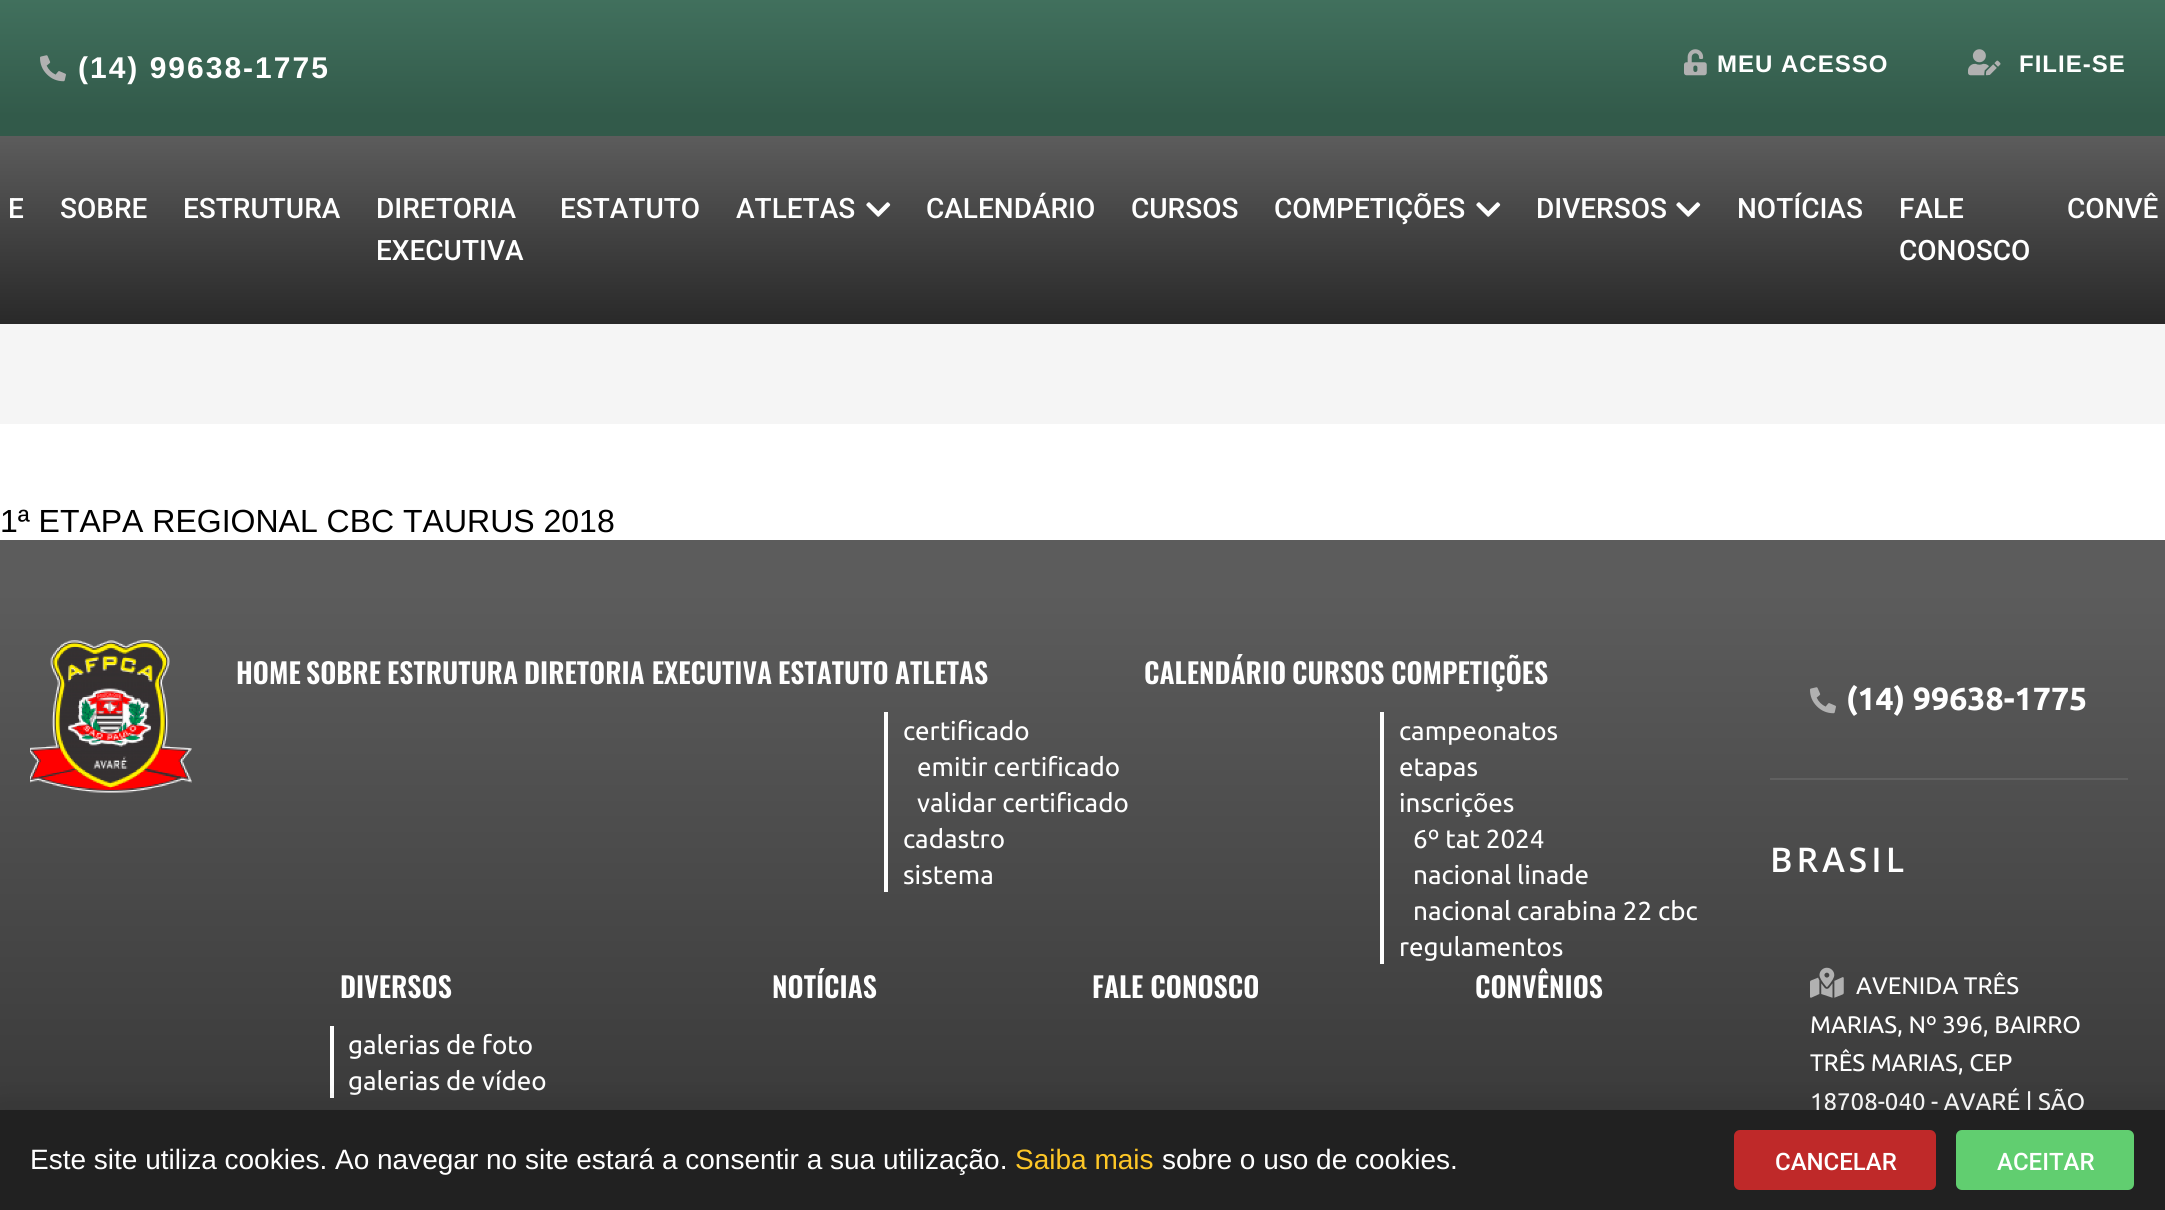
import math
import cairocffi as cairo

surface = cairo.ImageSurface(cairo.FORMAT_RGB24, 2165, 1210)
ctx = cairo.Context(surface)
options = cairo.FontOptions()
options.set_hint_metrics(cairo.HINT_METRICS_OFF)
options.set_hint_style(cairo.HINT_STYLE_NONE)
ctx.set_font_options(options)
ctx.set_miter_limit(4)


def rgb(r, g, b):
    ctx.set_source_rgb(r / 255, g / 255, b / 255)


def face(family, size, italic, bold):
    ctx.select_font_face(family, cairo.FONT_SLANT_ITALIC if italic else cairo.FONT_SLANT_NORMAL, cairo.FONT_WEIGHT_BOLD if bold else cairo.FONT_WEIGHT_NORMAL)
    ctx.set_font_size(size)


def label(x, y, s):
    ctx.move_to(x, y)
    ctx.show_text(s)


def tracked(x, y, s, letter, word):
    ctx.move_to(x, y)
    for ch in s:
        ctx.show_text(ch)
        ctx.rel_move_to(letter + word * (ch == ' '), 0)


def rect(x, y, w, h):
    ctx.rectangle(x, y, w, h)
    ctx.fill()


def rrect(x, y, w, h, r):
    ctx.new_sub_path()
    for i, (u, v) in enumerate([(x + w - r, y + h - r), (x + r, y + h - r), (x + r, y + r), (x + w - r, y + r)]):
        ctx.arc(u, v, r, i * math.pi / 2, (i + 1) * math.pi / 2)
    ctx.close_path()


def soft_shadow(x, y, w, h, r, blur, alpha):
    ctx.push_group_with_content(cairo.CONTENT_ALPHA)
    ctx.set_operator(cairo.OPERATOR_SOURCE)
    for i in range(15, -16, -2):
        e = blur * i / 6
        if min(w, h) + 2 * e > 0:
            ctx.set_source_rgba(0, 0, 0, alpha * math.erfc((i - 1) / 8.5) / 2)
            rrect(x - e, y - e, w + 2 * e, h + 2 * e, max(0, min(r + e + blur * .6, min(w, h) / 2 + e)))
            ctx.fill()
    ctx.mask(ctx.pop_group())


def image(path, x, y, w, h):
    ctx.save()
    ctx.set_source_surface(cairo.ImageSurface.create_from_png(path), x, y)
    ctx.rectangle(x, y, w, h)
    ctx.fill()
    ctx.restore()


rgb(255, 255, 255)
ctx.paint()
gradient = cairo.LinearGradient(1083, 0, 1083, 136)
gradient.add_color_stop_rgba(0, 0.255, 0.439, 0.365, 1)
gradient.add_color_stop_rgba(0.85, 0.196, 0.353, 0.29, 1)
ctx.set_source(gradient)
rect(0, 0, 2165, 136)
image('image0.png', 40, 55, 26, 27)
face('Liberation Sans', 30, 0, 1)
rgb(255, 255, 255)
tracked(78, 78, '(14) 99638-1775', 2, 0)
image('image1.png', 1684, 49, 23, 27)
face('Liberation Sans', 24, 0, 1)
tracked(1717, 72, 'MEU ACESSO', 1, 0)
image('image2.png', 1968, 49, 33, 27)
tracked(2019, 72, 'FILIE-SE', 1, 0)
gradient = cairo.LinearGradient(1083, 136, 1083, 324)
gradient.add_color_stop_rgba(0, 0.361, 0.361, 0.361, 1)
gradient.add_color_stop_rgba(1, 0.161, 0.161, 0.161, 1)
ctx.set_source(gradient)
rect(0, 136, 2165, 188)
face('Roboto Medium', 28, 0, 0)
rgb(255, 255, 255)
label(8, 218, 'E')
label(60, 218, 'SOBRE')
label(183, 218, 'ESTRUTURA')
label(376, 218, 'DIRETORIA')
label(376, 260, 'EXECUTIVA')
label(560, 218, 'ESTATUTO')
label(736, 218, 'ATLETAS')
image('image3.png', 866, 202, 25, 15)
label(926, 218, 'CALENDÁRIO')
label(1131, 218, 'CURSOS')
label(1274, 218, 'COMPETIÇÕES')
image('image3.png', 1476, 202, 25, 15)
label(1536, 218, 'DIVERSOS')
image('image3.png', 1676, 202, 25, 15)
label(1737, 218, 'NOTÍCIAS')
label(1899, 218, 'FALE')
label(1899, 260, 'CONOSCO')
label(2067, 218, 'CONVÊ')
rgb(245, 245, 245)
rect(0, 324, 2165, 100)
face('Liberation Sans', 32, 0, 0)
rgb(0, 0, 0)
label(0, 532, '1ª ETAPA REGIONAL CBC TAURUS 2018')
gradient = cairo.LinearGradient(1083, 540, 1083, 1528)
gradient.add_color_stop_rgba(0.05, 0.361, 0.361, 0.361, 1)
gradient.add_color_stop_rgba(1, 0.125, 0.125, 0.125, 1)
ctx.set_source(gradient)
rect(0, 540, 2165, 570)
image('image4.png', 30, 640, 162, 153)
face('Oswald SemiBold', 28, 0, 0)
rgb(255, 255, 255)
label(236, 684, 'HOME')
label(306, 684, 'SOBRE')
label(387, 684, 'ESTRUTURA')
label(524, 684, 'DIRETORIA EXECUTIVA')
label(778, 684, 'ESTATUTO')
label(895, 684, 'ATLETAS')
rect(884, 712, 4, 180)
face('Ubuntu', 26, 0, 0)
label(903, 740, 'certificado')
label(917, 776, 'emitir certificado')
label(917, 812, 'validar certificado')
label(903, 848, 'cadastro')
label(903, 884, 'sistema')
face('Oswald SemiBold', 28, 0, 0)
label(1144, 684, 'CALENDÁRIO')
label(1292, 684, 'CURSOS')
label(1391, 684, 'COMPETIÇÕES')
rect(1380, 712, 4, 252)
face('Ubuntu', 26, 0, 0)
label(1399, 740, 'campeonatos')
label(1399, 776, 'etapas')
label(1399, 812, 'inscrições')
label(1413, 848, '6º tat 2024')
label(1413, 884, 'nacional linade')
label(1413, 920, 'nacional carabina 22 cbc')
label(1399, 956, 'regulamentos')
face('Oswald SemiBold', 28, 0, 0)
label(340, 998, 'DIVERSOS')
rect(330, 1026, 4, 72)
face('Ubuntu', 26, 0, 0)
label(348, 1054, 'galerias de foto')
label(348, 1090, 'galerias de vídeo')
face('Oswald SemiBold', 28, 0, 0)
label(772, 998, 'NOTÍCIAS')
label(1092, 998, 'FALE CONOSCO')
label(1475, 998, 'CONVÊNIOS')
rgb(96, 96, 96)
rect(1770, 778, 358, 2)
image('image5.png', 1810, 687, 26, 27)
face('Ubuntu', 32, 0, 1)
rgb(255, 255, 255)
label(1846, 710, '(14) 99638-1775')
face('Open Sans SemiBold', 34, 0, 0)
tracked(1770, 872, 'BRASIL', 4, 0)
image('image6.png', 1810, 967, 34, 31)
face('Ubuntu', 24, 0, 0)
label(1856, 994, 'AVENIDA TRÊS')
label(1810, 1033, 'MARIAS, Nº 396, BAIRRO')
label(1810, 1071, 'TRÊS MARIAS, CEP')
label(1810, 1110, '18708-040 - AVARÉ | SÃO')
rgb(0, 0, 0)
soft_shadow(-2, 1120, 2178, 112, 0, 23, 0.2)
rgb(33, 33, 33)
rect(0, 1110, 2165, 100)
face('Liberation Sans', 28, 0, 0)
rgb(255, 255, 255)
label(30, 1169, 'Este site utiliza cookies. Ao navegar no site estará a consentir a sua utilização.')
rgb(254, 199, 38)
label(1015, 1169, 'Saiba mais')
rgb(255, 255, 255)
label(1162, 1169, 'sobre o uso de cookies.')
rgb(191, 41, 41)
rrect(1734, 1130, 202, 60, 6)
ctx.fill()
face('Roboto Medium', 24, 0, 0)
rgb(255, 255, 255)
label(1775, 1170, 'CANCELAR')
rgb(97, 206, 112)
rrect(1956, 1130, 178, 60, 6)
ctx.fill()
rgb(255, 255, 255)
label(1997, 1170, 'ACEITAR')
surface.write_to_png('render.png')
